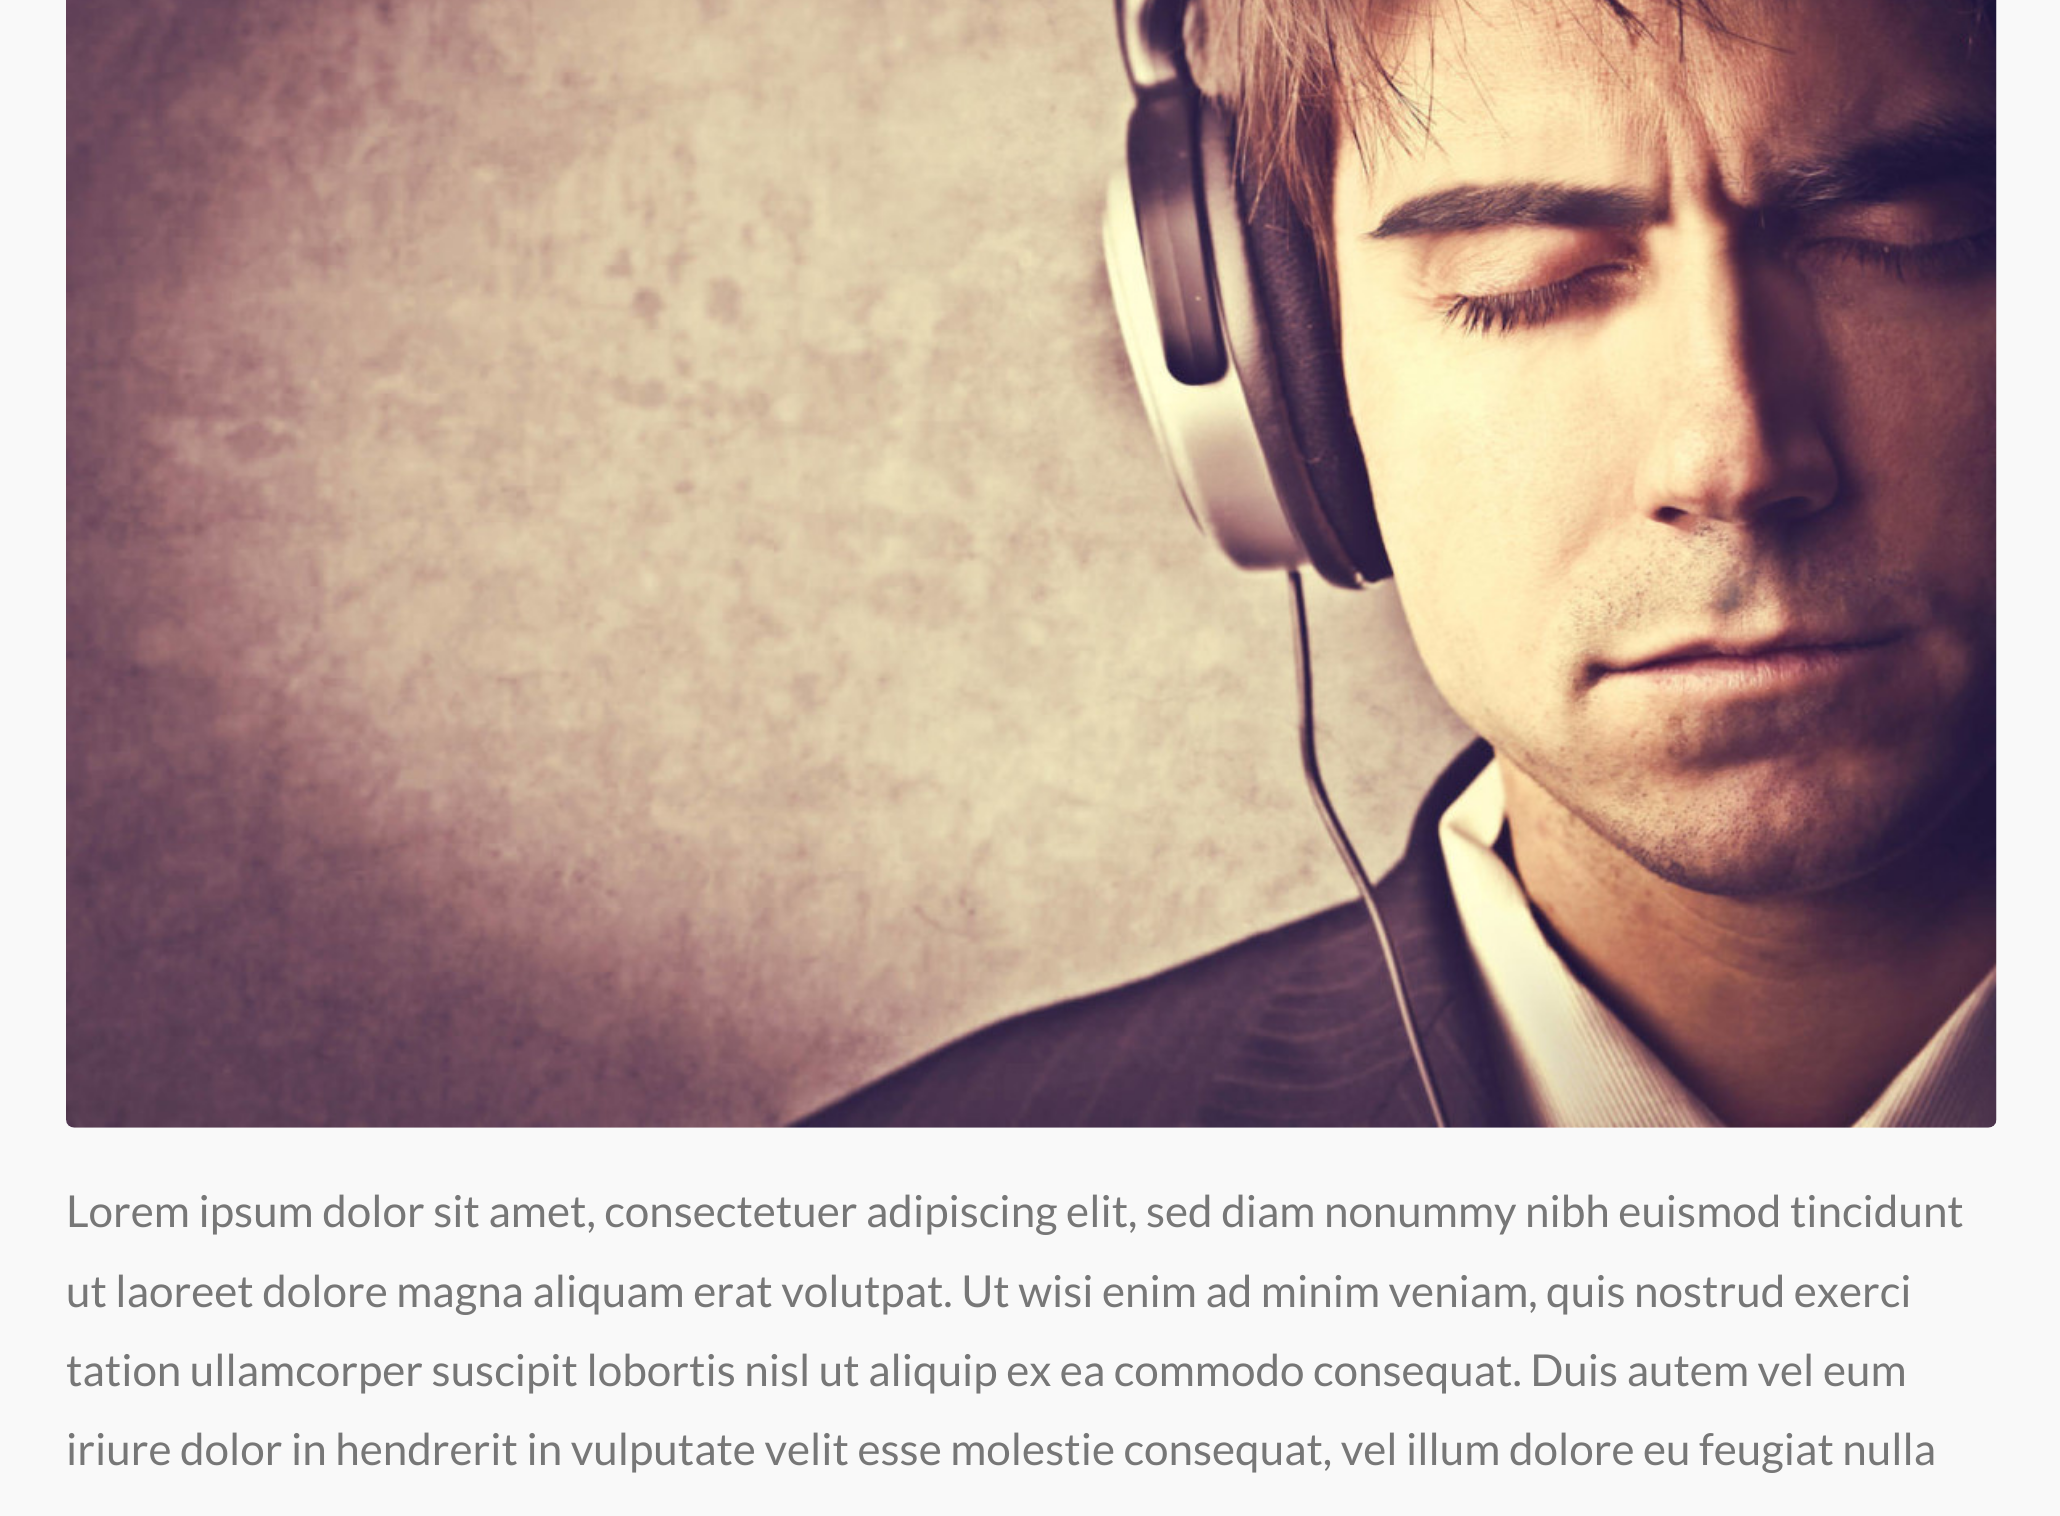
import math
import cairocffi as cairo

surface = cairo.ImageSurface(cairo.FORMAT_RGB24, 2060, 1516)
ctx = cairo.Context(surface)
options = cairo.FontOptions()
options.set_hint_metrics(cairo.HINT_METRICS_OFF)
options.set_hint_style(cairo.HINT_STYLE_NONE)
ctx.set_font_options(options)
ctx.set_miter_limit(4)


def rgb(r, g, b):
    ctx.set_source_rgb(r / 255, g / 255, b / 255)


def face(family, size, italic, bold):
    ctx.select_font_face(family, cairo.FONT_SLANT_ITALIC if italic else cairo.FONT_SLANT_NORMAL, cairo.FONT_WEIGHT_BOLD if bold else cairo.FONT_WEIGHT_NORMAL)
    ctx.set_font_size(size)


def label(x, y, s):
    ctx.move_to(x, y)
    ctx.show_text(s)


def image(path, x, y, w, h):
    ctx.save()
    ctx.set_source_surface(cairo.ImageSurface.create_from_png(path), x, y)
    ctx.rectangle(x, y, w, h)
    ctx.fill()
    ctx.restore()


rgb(249, 249, 249)
ctx.paint()
image('image0.png', 66, 0, 1931, 1128)
face('Lato', 44, 0, 0)
rgb(119, 119, 119)
label(66, 1227, 'Lorem ipsum dolor sit amet, consectetuer adipiscing elit, sed diam nonummy nibh euismod tincidunt')
label(66, 1307, 'ut laoreet dolore magna aliquam erat volutpat. Ut wisi enim ad minim veniam, quis nostrud exerci')
label(66, 1386, 'tation ullamcorper suscipit lobortis nisl ut aliquip ex ea commodo consequat. Duis autem vel eum')
label(66, 1465, 'iriure dolor in hendrerit in vulputate velit esse molestie consequat, vel illum dolore eu feugiat nulla')
surface.write_to_png('render.png')
